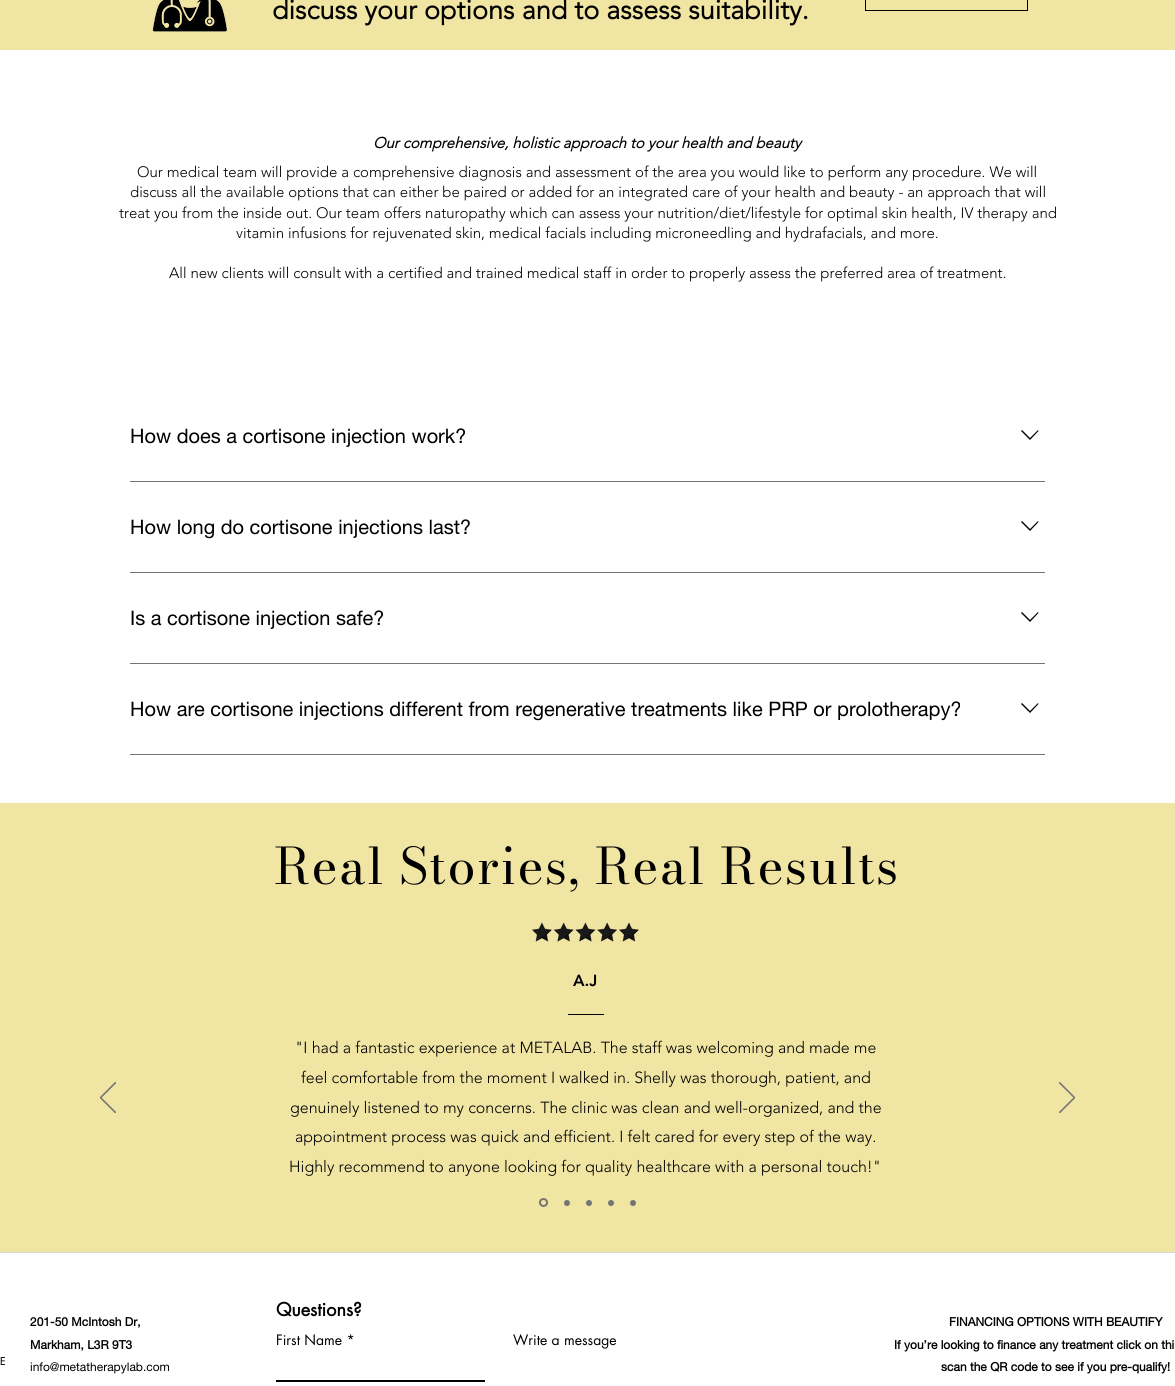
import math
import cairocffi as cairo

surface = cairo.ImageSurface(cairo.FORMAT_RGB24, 1175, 1386)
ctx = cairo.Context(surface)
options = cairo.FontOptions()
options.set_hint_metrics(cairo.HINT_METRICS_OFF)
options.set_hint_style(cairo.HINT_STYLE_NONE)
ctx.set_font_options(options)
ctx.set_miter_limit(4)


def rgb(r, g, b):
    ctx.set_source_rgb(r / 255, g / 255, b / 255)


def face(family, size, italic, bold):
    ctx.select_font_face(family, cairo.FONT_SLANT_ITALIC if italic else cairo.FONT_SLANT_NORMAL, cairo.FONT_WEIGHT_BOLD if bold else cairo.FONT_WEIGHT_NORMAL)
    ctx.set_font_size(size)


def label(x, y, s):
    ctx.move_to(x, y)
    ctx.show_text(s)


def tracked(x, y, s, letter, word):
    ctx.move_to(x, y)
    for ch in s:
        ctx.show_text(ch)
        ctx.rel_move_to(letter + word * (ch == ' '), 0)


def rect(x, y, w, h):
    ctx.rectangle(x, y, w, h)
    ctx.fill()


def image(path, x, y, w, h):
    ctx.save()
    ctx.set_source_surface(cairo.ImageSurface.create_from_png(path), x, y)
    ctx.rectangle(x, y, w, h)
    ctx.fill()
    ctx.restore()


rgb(255, 255, 255)
ctx.paint()
rgb(240, 229, 163)
rect(0, 0, 1175, 50)
image('image0.png', 152, 0, 75, 32)
face('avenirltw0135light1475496', 27, 0, 1)
rgb(0, 0, 0)
label(272, 19, 'discuss your options and to assess suitability.')
ctx.rectangle(865.5, -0.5, 162, 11)
ctx.set_line_width(1)
ctx.stroke()
face('avenirltw0135light1475496', 15, 1, 1)
label(373, 148, 'Our comprehensive, holistic approach to your health and beauty')
face('avenirltw0135light1475496 Light', 15, 0, 0)
label(137, 177, 'Our medical team will provide a comprehensive diagnosis and assessment of the area you would like to perform any procedure. We will')
label(130, 197, 'discuss all the available options that can either be paired or added for an integrated care of your health and beauty - an approach that will')
label(119, 218, 'treat you from the inside out. Our team offers naturopathy which can assess your nutrition/diet/lifestyle for optimal skin health, IV therapy and')
label(236, 238, 'vitamin infusions for rejuvenated skin, medical facials including microneedling and hydrafacials, and more.')
label(169, 278, 'All new clients will consult with a certified and trained medical staff in order to properly assess the preferred area of treatment.')
face('helvetica neue', 20, 0, 0)
label(130, 443, 'How does a cortisone injection work?')
ctx.set_fill_rule(cairo.FILL_RULE_EVEN_ODD)
ctx.new_path()
ctx.move_to(1038, 430)
ctx.line_to(1038.5, 431)
ctx.line_to(1030, 440)
ctx.line_to(1021, 431)
ctx.line_to(1022, 430)
ctx.line_to(1030, 438)
ctx.close_path()
ctx.fill()
rgb(117, 117, 117)
rect(130, 481, 915, 1)
rgb(0, 0, 0)
label(130, 534, 'How long do cortisone injections last?')
ctx.new_path()
ctx.move_to(1038, 521)
ctx.line_to(1038.5, 522)
ctx.line_to(1030, 531)
ctx.line_to(1021, 522)
ctx.line_to(1022, 521)
ctx.line_to(1030, 529)
ctx.close_path()
ctx.fill()
rgb(117, 117, 117)
rect(130, 572, 915, 1)
rgb(0, 0, 0)
label(130, 625, 'Is a cortisone injection safe?')
ctx.new_path()
ctx.move_to(1038, 612)
ctx.line_to(1038.5, 613)
ctx.line_to(1030, 622)
ctx.line_to(1021, 613)
ctx.line_to(1022, 612)
ctx.line_to(1030, 620)
ctx.close_path()
ctx.fill()
rgb(117, 117, 117)
rect(130, 663, 915, 1)
rgb(0, 0, 0)
label(130, 716, 'How are cortisone injections different from regenerative treatments like PRP or prolotherapy?')
ctx.new_path()
ctx.move_to(1038, 703)
ctx.line_to(1038.5, 704)
ctx.line_to(1030, 713)
ctx.line_to(1021, 704)
ctx.line_to(1022, 703)
ctx.line_to(1030, 711)
ctx.close_path()
ctx.fill()
rgb(117, 117, 117)
rect(130, 754, 915, 1)
rgb(240, 229, 163)
rect(0, 803, 1175, 449)
face('Bodoni Moda', 50, 0, 0)
rgb(0, 0, 0)
tracked(274, 884, 'Real Stories, Real Results', 1.5, 0)
image('image1.png', 532, 922, 107, 20)
image('image2.png', 100, 1082, 16, 31)
face('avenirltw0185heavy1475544 Black', 16, 0, 0)
label(573, 986, 'A.J')
rect(568, 1014, 36, 1)
face('avenirltw0135light1475496 Light', 16, 0, 0)
label(295, 1053, '"I had a fantastic experience at METALAB. The staff was welcoming and made me')
label(301, 1083, 'feel comfortable from the moment I walked in. Shelly was thorough, patient, and')
label(290, 1113, 'genuinely listened to my concerns. The clinic was clean and well-organized, and the')
label(295, 1142, 'appointment process was quick and efficient. I felt cared for every step of the way.')
label(289, 1172, 'Highly recommend to anyone looking for quality healthcare with a personal touch!"')
image('image3.png', 1059, 1082, 16, 31)
ctx.arc(543.5, 1202.5, 3.5, 0, 2 * math.pi)
rgb(117, 117, 117)
ctx.set_line_width(2)
ctx.stroke()
ctx.arc(567, 1203, 3, 0, 2 * math.pi)
ctx.fill()
ctx.arc(589, 1203, 3, 0, 2 * math.pi)
ctx.fill()
ctx.arc(611, 1203, 3, 0, 2 * math.pi)
ctx.fill()
ctx.arc(633, 1203, 3, 0, 2 * math.pi)
ctx.fill()
rgb(217, 217, 217)
rect(0, 1252, 1175, 1)
face('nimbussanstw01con', 12, 0, 0)
rgb(0, 0, 0)
label(0, 1365, 'E')
face('helvetica neue', 12, 0, 1)
label(30, 1326, '201-50 McIntosh Dr,')
label(30, 1349, 'Markham, L3R 9T3')
face('helvetica neue', 12, 0, 0)
label(30, 1371, 'info@metatherapylab.com')
face('futura', 18, 0, 1)
label(276, 1316, 'Questions?')
face('futura', 14, 0, 0)
label(276, 1345, 'First Name *')
rect(276, 1380, 209, 2)
label(513, 1345, 'Write a message')
face('helvetica neue', 12, 0, 1)
label(949, 1326, 'FINANCING OPTIONS WITH BEAUTIFY')
label(894, 1349, 'If you’re looking to finance any treatment click on thi')
label(941, 1371, 'scan the QR code to see if you pre-qualify!')
surface.write_to_png('render.png')
